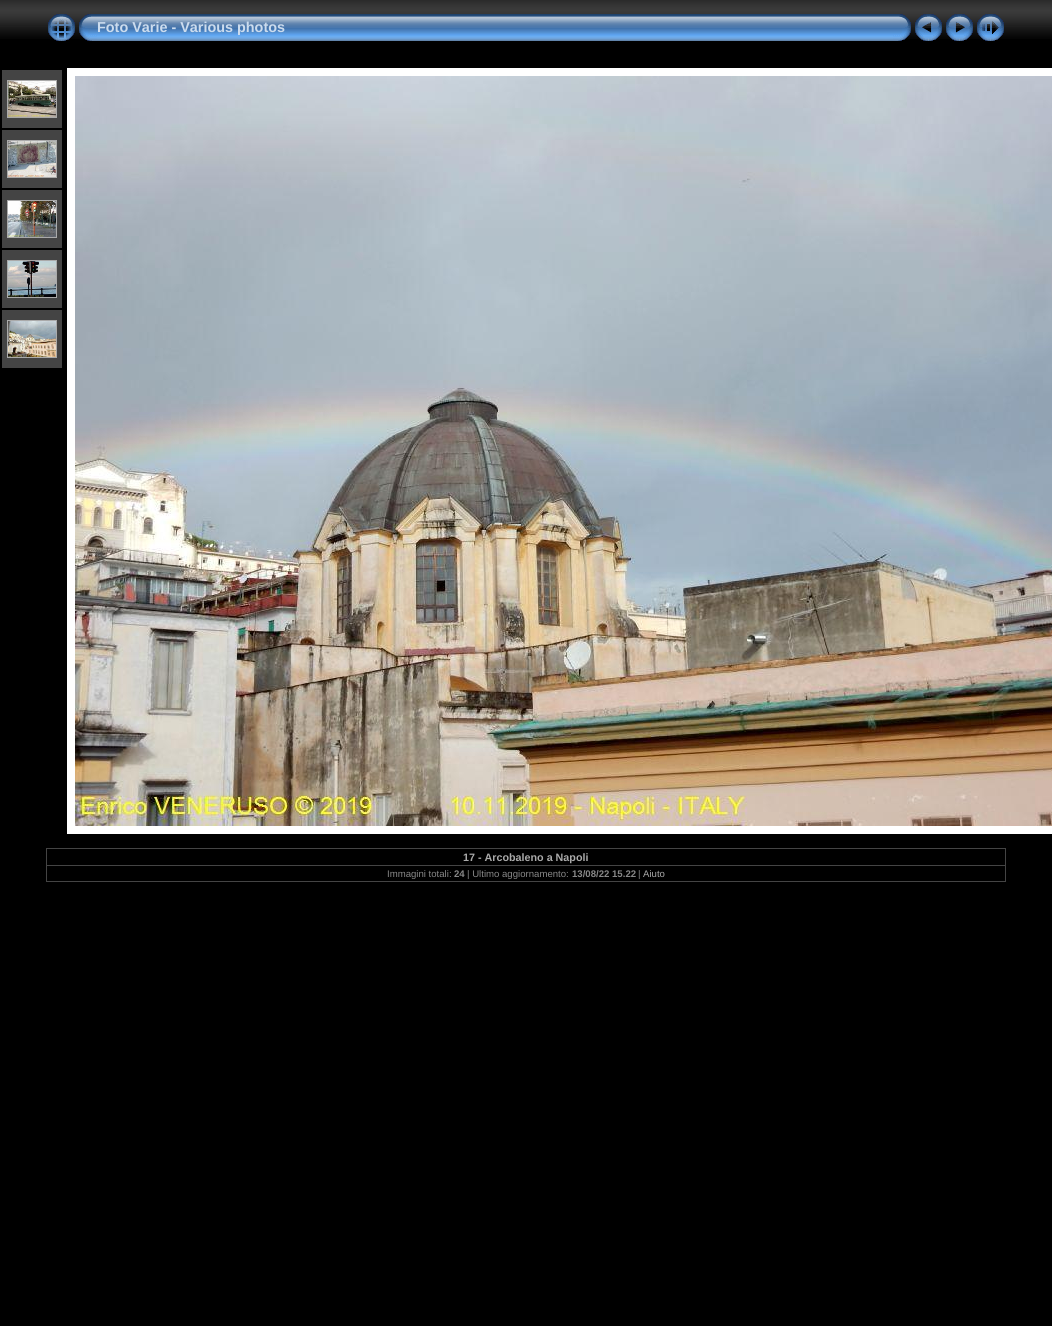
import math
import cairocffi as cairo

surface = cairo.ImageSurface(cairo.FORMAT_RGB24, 1052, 1326)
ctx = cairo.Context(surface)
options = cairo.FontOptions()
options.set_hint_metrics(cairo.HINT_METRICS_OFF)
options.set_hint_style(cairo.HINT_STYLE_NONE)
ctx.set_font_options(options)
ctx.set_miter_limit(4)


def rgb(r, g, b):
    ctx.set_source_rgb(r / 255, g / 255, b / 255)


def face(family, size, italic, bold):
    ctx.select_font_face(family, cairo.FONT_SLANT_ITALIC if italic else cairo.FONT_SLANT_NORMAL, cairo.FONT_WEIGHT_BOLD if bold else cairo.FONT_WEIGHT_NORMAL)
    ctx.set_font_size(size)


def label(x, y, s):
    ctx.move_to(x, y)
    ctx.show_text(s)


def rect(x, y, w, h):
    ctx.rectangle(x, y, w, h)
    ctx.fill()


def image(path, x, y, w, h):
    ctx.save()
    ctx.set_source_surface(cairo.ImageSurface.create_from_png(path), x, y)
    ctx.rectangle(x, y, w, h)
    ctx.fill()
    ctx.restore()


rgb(0, 0, 0)
ctx.paint()
image('image0.png', 0, 0, 1052, 39)
image('image1.png', 48, 14, 27, 27)
image('image2.png', 79, 14, 18, 27)
image('image3.png', 97, 14, 796, 27)
face('Liberation Sans', 14.4, 0, 1)
rgb(204, 220, 238)
label(97, 32, 'Foto Varie - Various photos')
image('image4.png', 893, 14, 18, 27)
image('image5.png', 915, 14, 27, 27)
image('image6.png', 946, 14, 27, 27)
image('image7.png', 977, 14, 27, 27)
rgb(68, 68, 68)
rect(2, 70, 60, 58)
ctx.rectangle(7.5, 80.5, 49, 37)
rgb(170, 170, 170)
ctx.set_line_width(1)
ctx.stroke()
image('image8.png', 8, 81, 48, 36)
rgb(68, 68, 68)
rect(2, 130, 60, 58)
ctx.rectangle(7.5, 140.5, 49, 37)
rgb(170, 170, 170)
ctx.stroke()
image('image9.png', 8, 141, 48, 36)
rgb(68, 68, 68)
rect(2, 190, 60, 58)
ctx.rectangle(7.5, 200.5, 49, 37)
rgb(170, 170, 170)
ctx.stroke()
image('image10.png', 8, 201, 48, 36)
rgb(68, 68, 68)
rect(2, 250, 60, 58)
ctx.rectangle(7.5, 260.5, 49, 37)
rgb(170, 170, 170)
ctx.stroke()
image('image11.png', 8, 261, 48, 36)
rgb(68, 68, 68)
rect(2, 310, 60, 58)
ctx.rectangle(7.5, 320.5, 49, 37)
rgb(170, 170, 170)
ctx.stroke()
image('image12.png', 8, 321, 48, 36)
ctx.rectangle(71, 72, 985, 758)
rgb(255, 255, 255)
ctx.set_line_width(8)
ctx.stroke()
image('image13.png', 75, 76, 977, 750)
rgb(68, 68, 68)
rect(46, 848, 960, 1)
rect(1005, 848, 1, 34)
rect(46, 881, 960, 1)
rect(46, 848, 1, 34)
face('Liberation Sans', 10.75, 0, 1)
rgb(170, 170, 170)
label(463, 861, '17 - Arcobaleno a Napoli')
rgb(68, 68, 68)
rect(46, 865, 960, 1)
face('Liberation Sans', 9.6, 0, 0)
rgb(136, 136, 136)
label(387, 877, 'Immagini totali:')
face('Liberation Sans', 9.6, 0, 1)
label(454, 877, '24')
face('Liberation Sans', 9.6, 0, 0)
label(467, 877, '| Ultimo aggiornamento:')
face('Liberation Sans', 9.6, 0, 1)
label(572, 877, '13/08/22 15.22')
face('Liberation Sans', 9.6, 0, 0)
label(638, 877, '|')
rgb(170, 170, 170)
label(643, 877, 'Aiuto')
surface.write_to_png('render.png')
